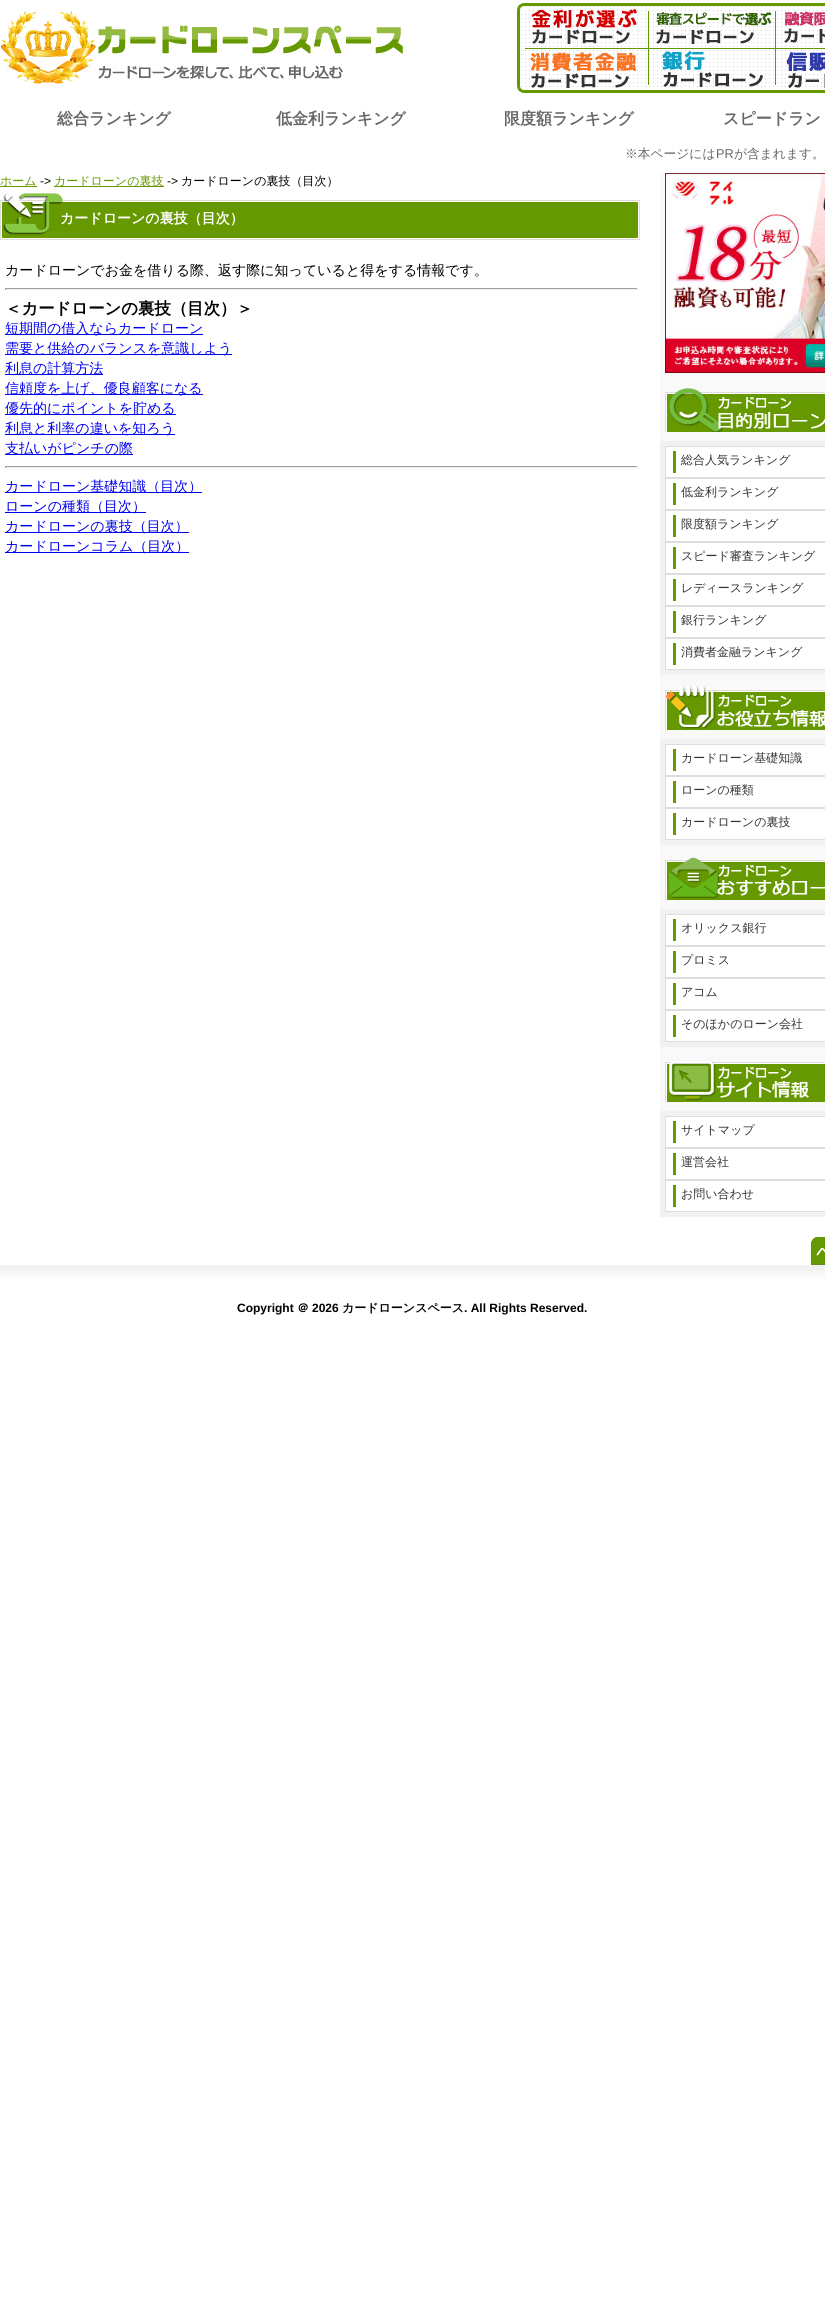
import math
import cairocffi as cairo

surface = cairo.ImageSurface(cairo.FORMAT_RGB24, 825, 2305)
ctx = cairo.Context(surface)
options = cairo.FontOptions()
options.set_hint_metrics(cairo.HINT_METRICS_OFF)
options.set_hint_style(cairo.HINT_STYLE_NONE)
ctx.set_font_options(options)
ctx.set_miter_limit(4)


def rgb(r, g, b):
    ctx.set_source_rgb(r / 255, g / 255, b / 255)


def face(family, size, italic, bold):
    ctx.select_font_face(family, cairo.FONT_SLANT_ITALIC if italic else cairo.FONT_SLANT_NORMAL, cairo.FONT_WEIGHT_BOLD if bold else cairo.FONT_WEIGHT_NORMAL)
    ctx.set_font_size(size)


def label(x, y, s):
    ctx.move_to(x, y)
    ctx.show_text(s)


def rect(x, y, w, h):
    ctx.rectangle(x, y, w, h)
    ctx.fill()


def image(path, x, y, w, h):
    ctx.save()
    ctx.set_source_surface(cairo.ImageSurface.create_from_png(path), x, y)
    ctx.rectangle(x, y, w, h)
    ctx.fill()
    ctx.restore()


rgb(255, 255, 255)
ctx.paint()
image('image0.png', 1, 11, 402, 73)
image('image1.png', 517, 3, 132, 46)
image('image2.png', 649, 3, 127, 46)
image('image3.png', 776, 3, 49, 46)
image('image4.png', 517, 49, 132, 44)
image('image5.png', 649, 49, 127, 44)
image('image6.png', 776, 50, 49, 43)
face('WenQuanYi Zen Hei', 16, 0, 1)
rgb(102, 102, 102)
label(57, 124, '総合ランキング')
label(276, 124, '低金利ランキング')
label(504, 124, '限度額ランキング')
label(723, 124, 'スピードラン')
face('WenQuanYi Zen Hei Medium', 12.75, 0, 0)
label(625, 158, '※本ページには')
face('Liberation Sans', 12.75, 0, 0)
label(716, 158, 'PR')
face('WenQuanYi Zen Hei Medium', 12.75, 0, 0)
label(734, 158, 'が含まれます。')
rgb(102, 153, 0)
rect(0, 186, 37, 1)
face('WenQuanYi Zen Hei Medium', 12, 0, 0)
label(0, 185, 'ホーム')
face('Liberation Sans', 12, 0, 0)
rgb(0, 0, 0)
label(40, 185, '->')
rgb(102, 153, 0)
rect(54, 186, 110, 1)
face('WenQuanYi Zen Hei Medium', 12, 0, 0)
label(54, 185, 'カードローンの裏技')
face('Liberation Sans', 12, 0, 0)
rgb(0, 0, 0)
label(167, 185, '->')
face('WenQuanYi Zen Hei Medium', 12, 0, 0)
label(181, 185, 'カードローンの裏技（目次）')
image('image7.png', 0, 193, 640, 47)
face('WenQuanYi Zen Hei', 14, 0, 1)
rgb(255, 255, 255)
label(60, 223, 'カードローンの裏技（目次）')
face('WenQuanYi Zen Hei Medium', 14, 0, 0)
rgb(0, 0, 0)
label(5, 275, 'カードローンでお金を借りる際、返す際に知っていると得をする情報です。')
rgb(159, 159, 159)
rect(5, 288, 633, 1)
rgb(238, 238, 238)
rect(637, 288, 1, 2)
rect(5, 289, 633, 1)
rgb(159, 159, 159)
rect(5, 288, 1, 2)
face('WenQuanYi Zen Hei', 16.4, 0, 1)
rgb(0, 0, 0)
label(5, 314, '＜カードローンの裏技（目次）＞')
rgb(0, 0, 238)
rect(5, 334, 198, 1)
face('WenQuanYi Zen Hei Medium', 14, 0, 0)
label(5, 333, '短期間の借入ならカードローン')
rect(5, 354, 227, 1)
label(5, 353, '需要と供給のバランスを意識しよう')
rect(5, 374, 98, 1)
label(5, 373, '利息の計算方法')
rect(5, 394, 198, 1)
label(5, 393, '信頼度を上げ、優良顧客になる')
rect(5, 414, 171, 1)
label(5, 413, '優先的にポイントを貯める')
rect(5, 434, 170, 1)
label(5, 433, '利息と利率の違いを知ろう')
rect(5, 454, 128, 1)
label(5, 453, '支払いがピンチの際')
rgb(159, 159, 159)
rect(5, 466, 633, 1)
rgb(238, 238, 238)
rect(637, 466, 1, 2)
rect(5, 467, 633, 1)
rgb(159, 159, 159)
rect(5, 466, 1, 2)
rgb(0, 0, 238)
rect(5, 492, 197, 1)
label(5, 491, 'カードローン基礎知識（目次）')
rect(5, 512, 141, 1)
label(5, 511, 'ローンの種類（目次）')
rect(5, 532, 184, 1)
label(5, 531, 'カードローンの裏技（目次）')
rect(5, 552, 184, 1)
label(5, 551, 'カードローンコラム（目次）')
rgb(249, 249, 249)
rect(660, 173, 165, 938)
image('image8.png', 665, 173, 160, 200)
image('image9.png', 665, 388, 160, 44)
rgb(241, 241, 241)
rect(660, 441, 165, 234)
image('image10.png', 666, 447, 159, 30)
ctx.rectangle(665.5, 446.5, 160, 31)
rgb(221, 221, 221)
ctx.set_line_width(1)
ctx.stroke()
face('WenQuanYi Zen Hei Medium', 12, 0, 0)
rgb(51, 51, 51)
label(681, 464, '総合人気ランキング')
image('image10.png', 666, 479, 159, 30)
ctx.rectangle(665.5, 478.5, 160, 31)
rgb(221, 221, 221)
ctx.stroke()
rgb(51, 51, 51)
label(681, 496, '低金利ランキング')
image('image10.png', 666, 511, 159, 30)
ctx.rectangle(665.5, 510.5, 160, 31)
rgb(221, 221, 221)
ctx.stroke()
rgb(51, 51, 51)
label(681, 528, '限度額ランキング')
image('image10.png', 666, 543, 159, 30)
ctx.rectangle(665.5, 542.5, 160, 31)
rgb(221, 221, 221)
ctx.stroke()
rgb(51, 51, 51)
label(681, 560, 'スピード審査ランキング')
image('image10.png', 666, 575, 159, 30)
ctx.rectangle(665.5, 574.5, 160, 31)
rgb(221, 221, 221)
ctx.stroke()
rgb(51, 51, 51)
label(681, 592, 'レディースランキング')
image('image10.png', 666, 607, 159, 30)
ctx.rectangle(665.5, 606.5, 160, 31)
rgb(221, 221, 221)
ctx.stroke()
rgb(51, 51, 51)
label(681, 624, '銀行ランキング')
image('image10.png', 666, 639, 159, 30)
ctx.rectangle(665.5, 638.5, 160, 31)
rgb(221, 221, 221)
ctx.stroke()
rgb(51, 51, 51)
label(681, 656, '消費者金融ランキング')
image('image11.png', 665, 686, 160, 44)
rgb(241, 241, 241)
rect(660, 739, 165, 106)
image('image10.png', 666, 745, 159, 30)
ctx.rectangle(665.5, 744.5, 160, 31)
rgb(221, 221, 221)
ctx.stroke()
rgb(51, 51, 51)
label(681, 762, 'カードローン基礎知識')
image('image10.png', 666, 777, 159, 30)
ctx.rectangle(665.5, 776.5, 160, 31)
rgb(221, 221, 221)
ctx.stroke()
rgb(51, 51, 51)
label(681, 794, 'ローンの種類')
image('image10.png', 666, 809, 159, 30)
ctx.rectangle(665.5, 808.5, 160, 31)
rgb(221, 221, 221)
ctx.stroke()
rgb(51, 51, 51)
label(681, 826, 'カードローンの裏技')
image('image12.png', 665, 857, 160, 43)
rgb(241, 241, 241)
rect(660, 909, 165, 138)
image('image10.png', 666, 915, 159, 30)
ctx.rectangle(665.5, 914.5, 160, 31)
rgb(221, 221, 221)
ctx.stroke()
rgb(51, 51, 51)
label(681, 932, 'オリックス銀行')
image('image10.png', 666, 947, 159, 30)
ctx.rectangle(665.5, 946.5, 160, 31)
rgb(221, 221, 221)
ctx.stroke()
rgb(51, 51, 51)
label(681, 964, 'プロミス')
image('image10.png', 666, 979, 159, 30)
ctx.rectangle(665.5, 978.5, 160, 31)
rgb(221, 221, 221)
ctx.stroke()
rgb(51, 51, 51)
label(681, 996, 'アコム')
image('image10.png', 666, 1011, 159, 30)
ctx.rectangle(665.5, 1010.5, 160, 31)
rgb(221, 221, 221)
ctx.stroke()
rgb(51, 51, 51)
label(681, 1028, 'そのほかのローン会社')
image('image13.png', 665, 1060, 160, 42)
rgb(241, 241, 241)
rect(660, 1111, 165, 106)
image('image10.png', 666, 1117, 159, 30)
ctx.rectangle(665.5, 1116.5, 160, 31)
rgb(221, 221, 221)
ctx.stroke()
rgb(51, 51, 51)
label(681, 1134, 'サイトマップ')
image('image10.png', 666, 1149, 159, 30)
ctx.rectangle(665.5, 1148.5, 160, 31)
rgb(221, 221, 221)
ctx.stroke()
rgb(51, 51, 51)
label(681, 1166, '運営会社')
image('image10.png', 666, 1181, 159, 30)
ctx.rectangle(665.5, 1180.5, 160, 31)
rgb(221, 221, 221)
ctx.stroke()
rgb(51, 51, 51)
label(681, 1198, 'お問い合わせ')
image('image14.png', 811, 1237, 14, 28)
image('image15.png', 0, 1265, 825, 13)
face('Liberation Sans', 12, 0, 1)
rgb(0, 0, 0)
label(237, 1312, 'Copyright')
face('WenQuanYi Zen Hei', 12, 0, 1)
label(297, 1312, '＠')
face('Liberation Sans', 12, 0, 1)
label(312, 1312, '2026')
face('WenQuanYi Zen Hei', 12, 0, 1)
label(342, 1312, 'カードローンスペース')
face('Liberation Sans', 12, 0, 1)
label(464, 1312, '. All Rights Reserved.')
surface.write_to_png('render.png')
